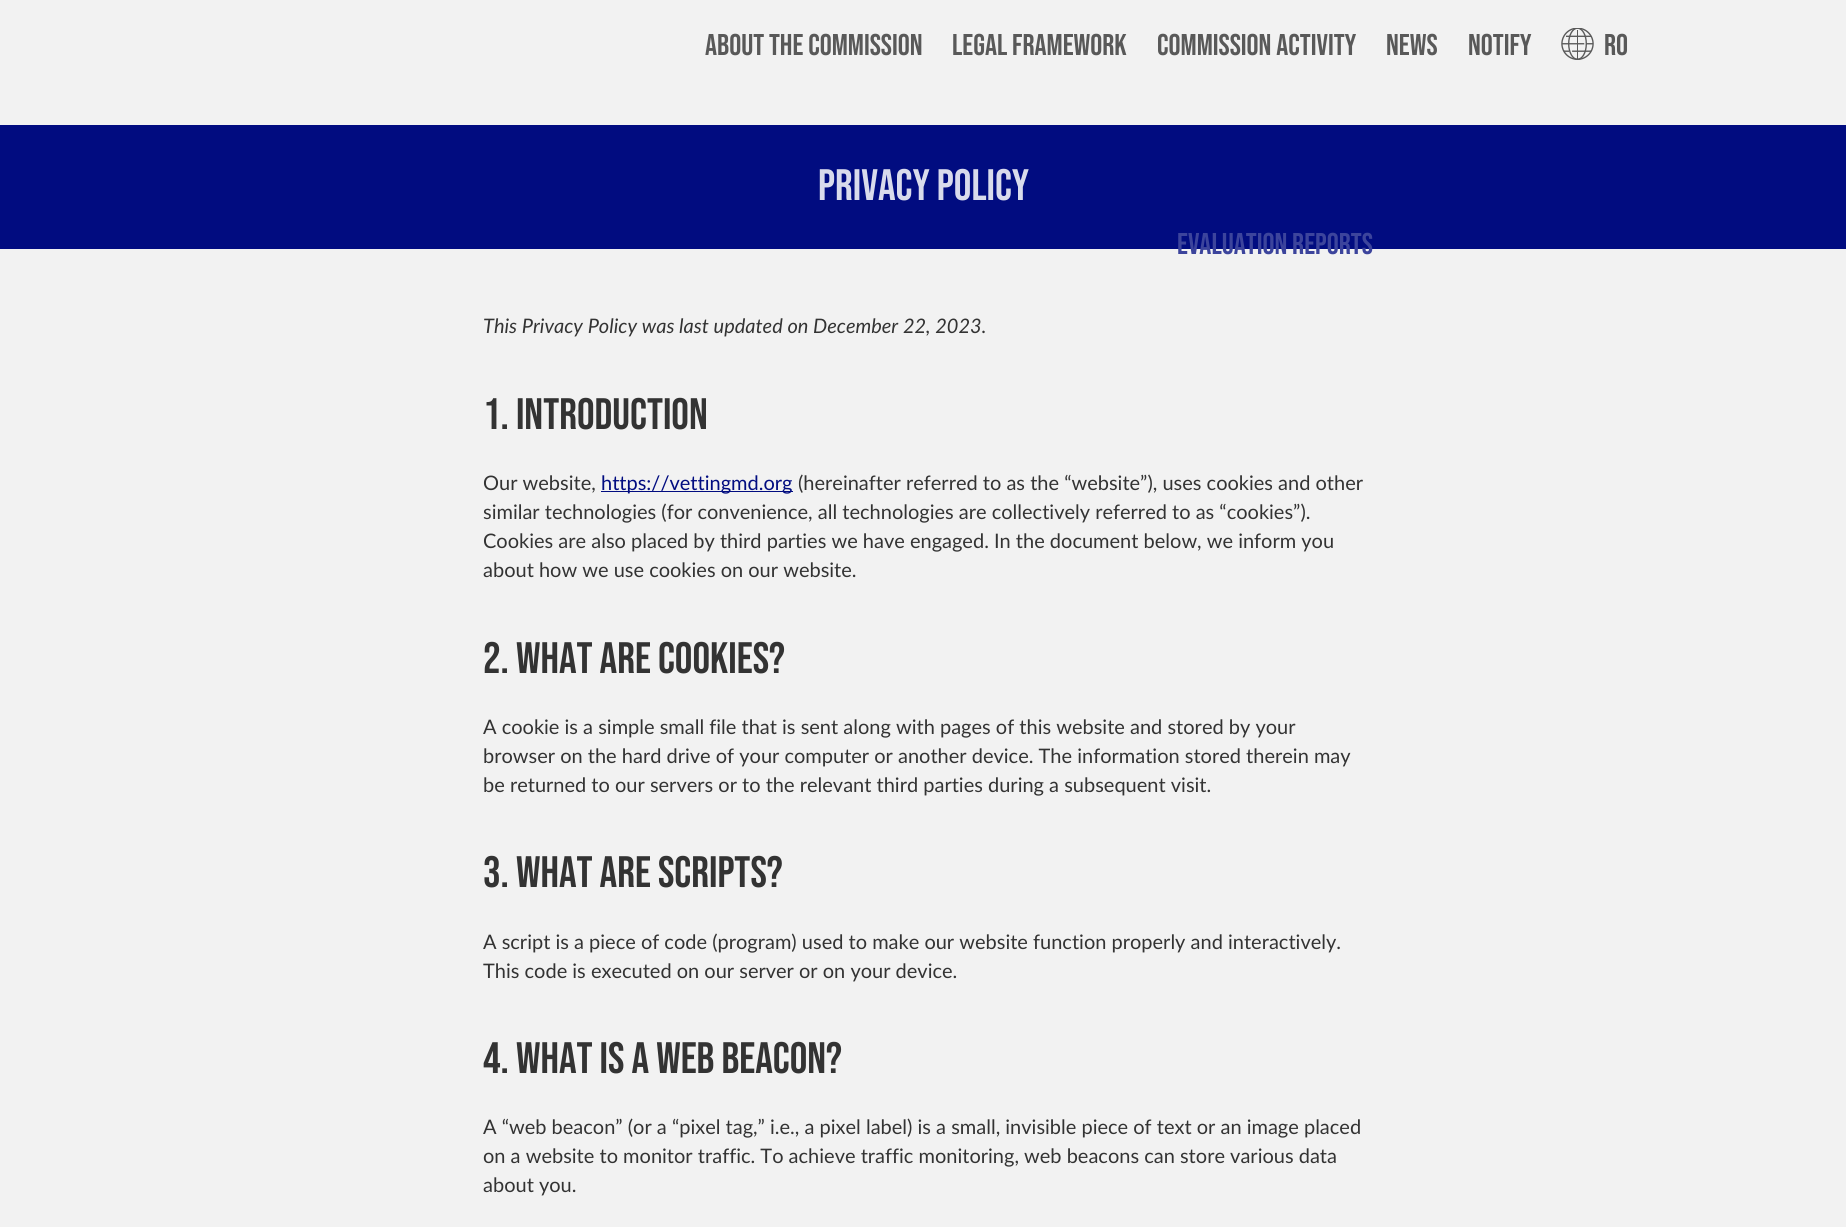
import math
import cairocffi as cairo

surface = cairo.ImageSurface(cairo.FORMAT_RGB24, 1846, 1227)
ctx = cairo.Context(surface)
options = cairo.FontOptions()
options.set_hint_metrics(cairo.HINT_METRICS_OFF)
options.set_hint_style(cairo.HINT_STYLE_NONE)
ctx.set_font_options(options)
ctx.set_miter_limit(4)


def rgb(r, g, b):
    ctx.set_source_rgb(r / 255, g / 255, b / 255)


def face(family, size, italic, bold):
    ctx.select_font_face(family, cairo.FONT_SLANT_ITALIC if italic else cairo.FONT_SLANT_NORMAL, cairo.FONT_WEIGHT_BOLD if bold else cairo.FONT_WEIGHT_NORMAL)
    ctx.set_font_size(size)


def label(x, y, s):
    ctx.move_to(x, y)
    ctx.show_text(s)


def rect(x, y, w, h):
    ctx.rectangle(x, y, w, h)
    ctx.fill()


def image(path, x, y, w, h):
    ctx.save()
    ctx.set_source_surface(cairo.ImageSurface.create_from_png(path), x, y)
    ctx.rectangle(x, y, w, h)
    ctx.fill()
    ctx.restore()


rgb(242, 242, 242)
ctx.paint()
face('Bebas Neue', 30, 0, 0)
rgb(89, 89, 89)
label(705, 55, 'About the Commission')
label(952, 55, 'Legal Framework')
label(1157, 55, 'Commission Activity')
rgb(1, 12, 128)
rect(0, 125, 1846, 124)
rgb(60, 68, 156)
label(1177, 254, 'Evaluation Reports')
rgb(89, 89, 89)
label(1386, 55, 'News')
label(1468, 55, 'Notify')
image('image0.png', 1561, 28, 33, 32)
label(1604, 55, 'ro')
face('Bebas Neue', 44, 0, 0)
rgb(217, 219, 236)
label(818, 200, 'Privacy policy')
face('Lato', 20, 1, 0)
rgb(51, 51, 51)
label(483, 333, 'This Privacy Policy was last updated on December 22, 2023.')
face('Bebas Neue', 44, 0, 0)
label(483, 429, '1. Introduction')
face('Lato', 20, 0, 0)
label(483, 490, 'Our website,')
rgb(1, 12, 128)
rect(601, 491, 192, 1)
label(601, 490, 'https://vettingmd.org')
rgb(51, 51, 51)
label(798, 490, '(hereinafter referred to as the “website”), uses cookies and other')
label(483, 519, 'similar technologies (for convenience, all technologies are collectively referred to as “cookies”).')
label(483, 548, 'Cookies are also placed by third parties we have engaged. In the document below, we inform you')
label(483, 577, 'about how we use cookies on our website.')
face('Bebas Neue', 44, 0, 0)
label(483, 673, '2. What are cookies?')
face('Lato', 20, 0, 0)
label(483, 734, 'A cookie is a simple small file that is sent along with pages of this website and stored by your')
label(483, 763, 'browser on the hard drive of your computer or another device. The information stored therein may')
label(483, 792, 'be returned to our servers or to the relevant third parties during a subsequent visit.')
face('Bebas Neue', 44, 0, 0)
label(483, 887, '3. What are scripts?')
face('Lato', 20, 0, 0)
label(483, 949, 'A script is a piece of code (program) used to make our website function properly and interactively.')
label(483, 978, 'This code is executed on our server or on your device.')
face('Bebas Neue', 44, 0, 0)
label(483, 1073, '4. What is a web beacon?')
face('Lato', 20, 0, 0)
label(483, 1134, 'A “web beacon” (or a “pixel tag,” i.e., a pixel label) is a small, invisible piece of text or an image placed')
label(483, 1163, 'on a website to monitor traffic. To achieve traffic monitoring, web beacons can store various data')
label(483, 1192, 'about you.')
surface.write_to_png('render.png')
